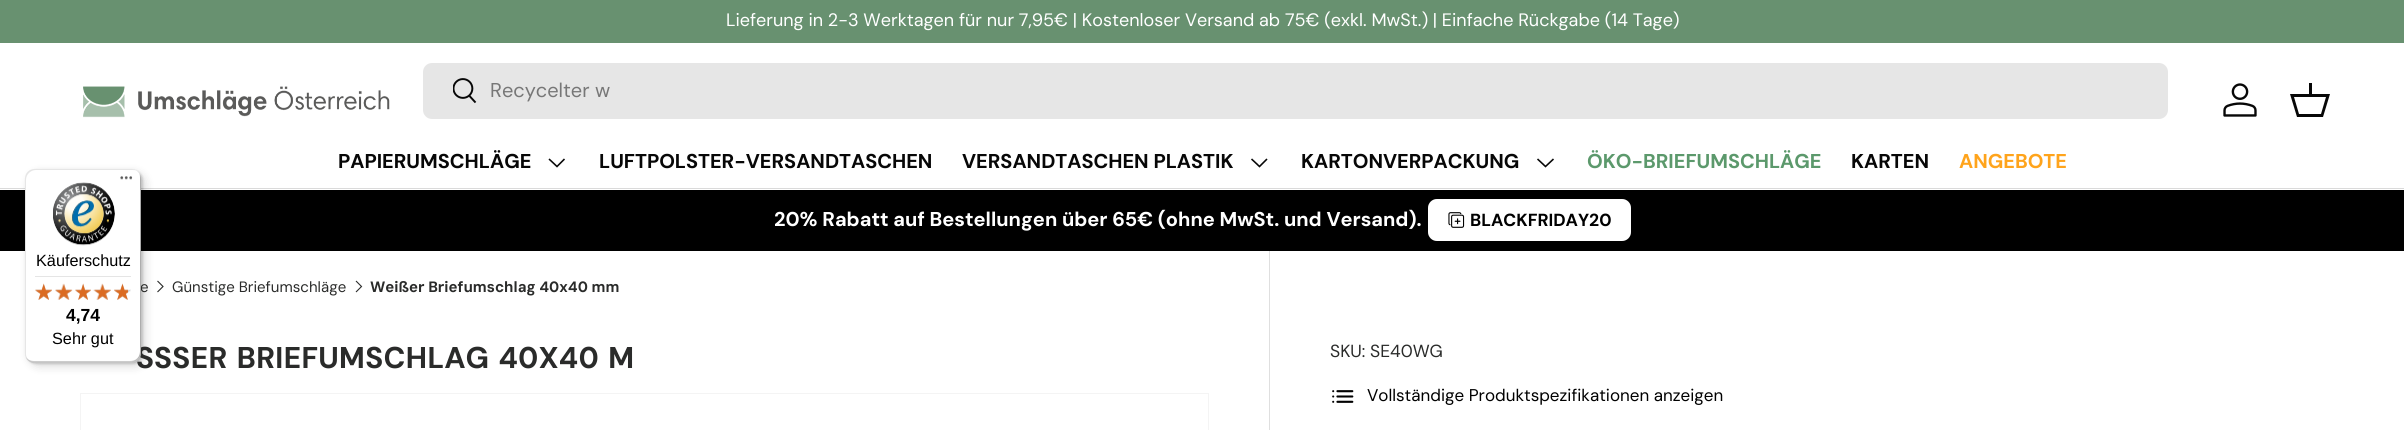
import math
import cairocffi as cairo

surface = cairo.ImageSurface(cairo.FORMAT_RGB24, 2404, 430)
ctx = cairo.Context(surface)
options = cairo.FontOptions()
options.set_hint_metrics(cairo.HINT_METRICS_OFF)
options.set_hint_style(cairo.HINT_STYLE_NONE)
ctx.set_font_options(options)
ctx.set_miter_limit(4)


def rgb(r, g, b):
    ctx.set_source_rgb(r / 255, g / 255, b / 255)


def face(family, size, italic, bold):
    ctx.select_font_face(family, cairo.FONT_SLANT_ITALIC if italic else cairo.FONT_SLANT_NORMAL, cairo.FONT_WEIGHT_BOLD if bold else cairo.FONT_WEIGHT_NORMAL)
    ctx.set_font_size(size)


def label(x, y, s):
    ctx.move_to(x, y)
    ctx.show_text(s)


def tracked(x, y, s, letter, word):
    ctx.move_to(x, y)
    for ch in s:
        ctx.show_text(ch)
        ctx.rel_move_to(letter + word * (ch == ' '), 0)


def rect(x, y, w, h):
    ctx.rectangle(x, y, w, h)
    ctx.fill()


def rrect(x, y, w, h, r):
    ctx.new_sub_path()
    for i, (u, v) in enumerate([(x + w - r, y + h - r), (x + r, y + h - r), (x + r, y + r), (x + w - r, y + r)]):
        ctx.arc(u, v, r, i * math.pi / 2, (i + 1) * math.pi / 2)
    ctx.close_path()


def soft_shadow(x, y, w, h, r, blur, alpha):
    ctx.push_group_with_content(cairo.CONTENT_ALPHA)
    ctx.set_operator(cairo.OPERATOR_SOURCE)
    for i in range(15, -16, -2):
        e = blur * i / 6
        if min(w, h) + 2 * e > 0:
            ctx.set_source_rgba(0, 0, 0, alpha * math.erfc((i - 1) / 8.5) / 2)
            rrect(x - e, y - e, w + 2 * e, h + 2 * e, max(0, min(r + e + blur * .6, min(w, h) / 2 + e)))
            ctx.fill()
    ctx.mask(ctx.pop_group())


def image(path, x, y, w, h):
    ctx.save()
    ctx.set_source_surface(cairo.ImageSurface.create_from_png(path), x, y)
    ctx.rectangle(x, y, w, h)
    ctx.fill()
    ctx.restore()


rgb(255, 255, 255)
ctx.paint()
rgb(104, 145, 112)
rect(0, 0, 2404, 43)
face('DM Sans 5', 18, 0, 0)
rgb(255, 255, 255)
label(726, 26, 'Lieferung in 2-3 Werktagen für nur 7,95€ | Kostenloser Versand ab 75€ (exkl. MwSt.) | Einfache Rückgabe (14 Tage)')
rgb(218, 218, 218)
rect(0, 188, 2404, 1)
image('image0.png', 83, 86, 307, 32)
rgb(230, 230, 230)
rrect(423, 63, 1745, 56, 9)
ctx.fill()
image('image1.png', 453, 78, 24, 26)
face('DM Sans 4', 20, 0, 0)
rgb(119, 119, 119)
label(490, 97, 'Recycelter w')
image('image2.png', 2223, 83, 34, 34)
rgb(7, 7, 7)
ctx.new_path()
ctx.move_to(2309, 94)
ctx.line_to(2309, 83)
ctx.line_to(2312, 83)
ctx.line_to(2312, 94)
ctx.line_to(2330, 94)
ctx.line_to(2323, 117)
ctx.line_to(2297, 117)
ctx.line_to(2290, 94)
ctx.close_path()
ctx.move_to(2294, 97)
ctx.line_to(2299, 114)
ctx.line_to(2321, 114)
ctx.line_to(2326, 97)
ctx.close_path()
ctx.fill()
face('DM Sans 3', 20, 0, 1)
label(338, 168, 'PAPIERUMSCHLÄGE')
ctx.new_path()
ctx.move_to(564.5, 159)
ctx.line_to(557, 166.5)
ctx.line_to(549, 159)
ctx.set_line_width(1.6)
ctx.stroke()
label(599, 168, 'LUFTPOLSTER-VERSANDTASCHEN')
label(962, 168, 'VERSANDTASCHEN PLASTIK')
ctx.new_path()
ctx.move_to(1267, 159)
ctx.line_to(1259.5, 166.5)
ctx.line_to(1251.5, 159)
ctx.stroke()
label(1301, 168, 'KARTONVERPACKUNG')
ctx.new_path()
ctx.move_to(1553.5, 159)
ctx.line_to(1545.5, 166.5)
ctx.line_to(1537.5, 159)
ctx.stroke()
rgb(92, 153, 108)
label(1587, 168, 'ÖKO-BRIEFUMSCHLÄGE')
rgb(7, 7, 7)
label(1851, 168, 'KARTEN')
rgb(255, 164, 28)
label(1959, 168, 'ANGEBOTE')
rgb(0, 0, 0)
rect(0, 190, 2404, 61)
rgb(255, 255, 255)
label(774, 226, '20% Rabatt auf Bestellungen über 65€ (ohne MwSt. und Versand).')
rrect(1428, 199, 203, 42, 9)
ctx.fill()
rrect(1429.5, 200.5, 200, 39, 7.5)
ctx.set_source_rgba(1, 1, 1, 0.2)
ctx.set_line_width(3)
ctx.stroke()
image('image3.png', 1448, 212, 17, 16)
face('DM Sans 4', 17.5, 0, 1)
rgb(0, 0, 0)
label(1470, 226, 'BLACKFRIDAY20')
ctx.new_path()
ctx.move_to(157.5, 281)
ctx.line_to(163, 286.5)
ctx.line_to(157.5, 292)
rgb(42, 43, 42)
ctx.set_line_width(1.1)
ctx.stroke()
rgb(0, 0, 0)
soft_shadow(29, 173, 116, 193, 10, 5, 0.15)
soft_shadow(26, 170, 117, 194, 10, 1, 0.15)
face('DM Sans', 15, 0, 0)
rgb(42, 43, 42)
label(140, 292, 'e')
face('DM Sans', 30, 0, 1)
label(136, 368, 'SS')
rgb(255, 255, 255)
rrect(25, 169, 116, 194, 10)
ctx.fill()
ctx.set_source_rgba(0, 0, 0, 0.1)
ctx.new_path()
ctx.move_to(36, 170)
ctx.line_to(132, 170)
ctx.curve_to(134, 170, 136, 170, 137, 171)
ctx.curve_to(136, 170, 133, 169, 131, 169)
ctx.line_to(35, 169)
ctx.curve_to(29, 169, 25, 173, 25, 179)
ctx.line_to(25, 353)
ctx.curve_to(25, 357, 27, 360, 30, 362)
ctx.curve_to(28, 360, 26, 357, 26, 354)
ctx.line_to(26, 180)
ctx.curve_to(26, 174, 31, 170, 36, 170)
ctx.close_path()
ctx.fill()
ctx.set_source_rgba(0, 0, 0, 0.2)
ctx.new_path()
ctx.move_to(26, 357)
ctx.curve_to(28, 361, 31, 363, 35, 363)
ctx.line_to(131, 363)
ctx.curve_to(137, 363, 141, 359, 141, 353)
ctx.line_to(141, 179)
ctx.curve_to(141, 177, 140, 174, 139, 173)
ctx.curve_to(140, 174, 140, 176, 140, 178)
ctx.line_to(140, 351)
ctx.curve_to(140, 357, 136, 361, 130, 361)
ctx.line_to(34, 361)
ctx.curve_to(31, 361, 28, 360, 26, 357)
ctx.close_path()
ctx.fill()
ctx.set_source_rgba(0.196, 0.196, 0.196, 0.2)
ctx.new_path()
ctx.move_to(26, 358)
ctx.curve_to(28, 361, 31, 363, 35, 363)
ctx.line_to(131, 363)
ctx.curve_to(137, 363, 141, 359, 141, 353)
ctx.line_to(141, 179)
ctx.curve_to(141, 177, 140, 174, 139, 173)
ctx.curve_to(140, 174, 140, 176, 140, 178)
ctx.line_to(140, 352)
ctx.curve_to(140, 357, 136, 362, 130, 362)
ctx.line_to(34, 362)
ctx.curve_to(31, 362, 28, 360, 26, 358)
ctx.close_path()
ctx.fill()
image('image4.png', 120, 176, 13, 4)
ctx.set_source_rgba(1, 1, 1, 0.3)
ctx.new_path()
ctx.move_to(26, 358)
ctx.curve_to(28, 361, 31, 363, 35, 363)
ctx.line_to(131, 363)
ctx.curve_to(137, 363, 141, 359, 141, 353)
ctx.line_to(141, 352)
ctx.curve_to(141, 357, 136, 362, 131, 362)
ctx.line_to(34, 362)
ctx.curve_to(31, 362, 28, 360, 26, 358)
ctx.close_path()
ctx.fill()
image('image5.png', 53, 182, 62, 64)
face('Liberation Sans', 16.25, 0, 0)
rgb(0, 0, 0)
label(36, 266, 'Käuferschutz')
rgb(229, 229, 229)
rect(35, 276, 96, 1)
image('image11.png', 35, 284, 17, 16)
image('image6.png', 35, 283, 17, 17)
image('image12.png', 55, 284, 17, 16)
image('image7.png', 55, 283, 18, 17)
image('image13.png', 75, 284, 16, 16)
image('image8.png', 75, 283, 16, 17)
image('image14.png', 93, 284, 18, 16)
image('image9.png', 93, 283, 18, 17)
image('image15.png', 114, 284, 17, 16)
image('image10.png', 114, 283, 14, 17)
face('Liberation Sans', 17.5, 0, 1)
rgb(0, 0, 0)
label(66, 321, '4,74')
face('Liberation Sans', 16.25, 0, 0)
label(52, 344, 'Sehr gut')
face('DM Sans', 15, 0, 0)
rgb(42, 43, 42)
label(172, 292, 'Günstige Briefumschläge')
ctx.new_path()
ctx.move_to(356, 281)
ctx.line_to(361.5, 286.5)
ctx.line_to(356, 292)
ctx.stroke()
face('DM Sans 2', 15, 0, 1)
label(370, 292, 'Weißer Briefumschlag 40x40 mm')
face('DM Sans 2', 30, 0, 1)
tracked(172, 368, 'SER BRIEFUMSCHLAG 40X40 M', 0, 2)
rgb(244, 244, 244)
rect(80, 393, 1129, 37)
rgb(255, 255, 255)
rect(81, 394, 1127, 36)
rgb(223, 223, 223)
rect(1269, 251, 1, 179)
face('DM Sans 2', 17.5, 0, 0)
rgb(42, 43, 42)
label(1330, 357, 'SKU: SE40WG')
image('image16.png', 1332, 390, 22, 13)
face('DM Sans 3', 17, 0, 0)
rgb(0, 0, 0)
label(1367, 401, 'Vollständige Produktspezifikationen anzeigen')
surface.write_to_png('render.png')
